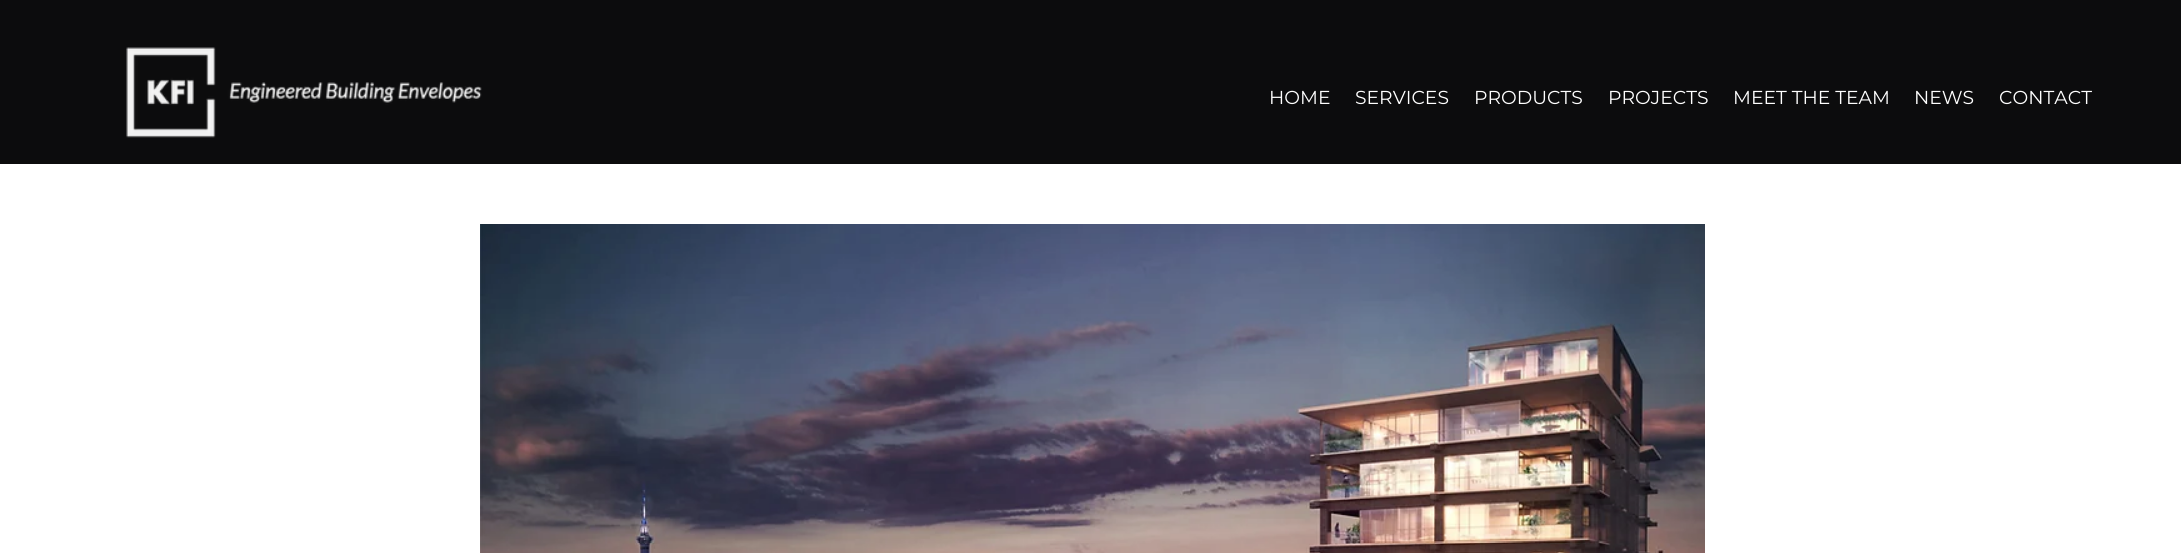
import math
import cairocffi as cairo

surface = cairo.ImageSurface(cairo.FORMAT_RGB24, 2181, 553)
ctx = cairo.Context(surface)
options = cairo.FontOptions()
options.set_hint_metrics(cairo.HINT_METRICS_OFF)
options.set_hint_style(cairo.HINT_STYLE_NONE)
ctx.set_font_options(options)
ctx.set_miter_limit(4)


def rgb(r, g, b):
    ctx.set_source_rgb(r / 255, g / 255, b / 255)


def face(family, size, italic, bold):
    ctx.select_font_face(family, cairo.FONT_SLANT_ITALIC if italic else cairo.FONT_SLANT_NORMAL, cairo.FONT_WEIGHT_BOLD if bold else cairo.FONT_WEIGHT_NORMAL)
    ctx.set_font_size(size)


def label(x, y, s):
    ctx.move_to(x, y)
    ctx.show_text(s)


def rect(x, y, w, h):
    ctx.rectangle(x, y, w, h)
    ctx.fill()


def image(path, x, y, w, h):
    ctx.save()
    ctx.set_source_surface(cairo.ImageSurface.create_from_png(path), x, y)
    ctx.rectangle(x, y, w, h)
    ctx.fill()
    ctx.restore()


rgb(255, 255, 255)
ctx.paint()
rgb(12, 12, 13)
rect(0, 0, 2181, 164)
image('image0.png', 126, 47, 356, 91)
face('Montserrat', 18.75, 0, 0)
rgb(255, 255, 255)
label(1269, 104, 'HOME')
label(1355, 104, 'SERVICES')
label(1474, 104, 'PRODUCTS')
label(1608, 104, 'PROJECTS')
label(1733, 104, 'MEET THE TEAM')
label(1914, 104, 'NEWS')
label(1999, 104, 'CONTACT')
image('image1.png', 480, 224, 1225, 329)
surface.write_to_png('render.png')
